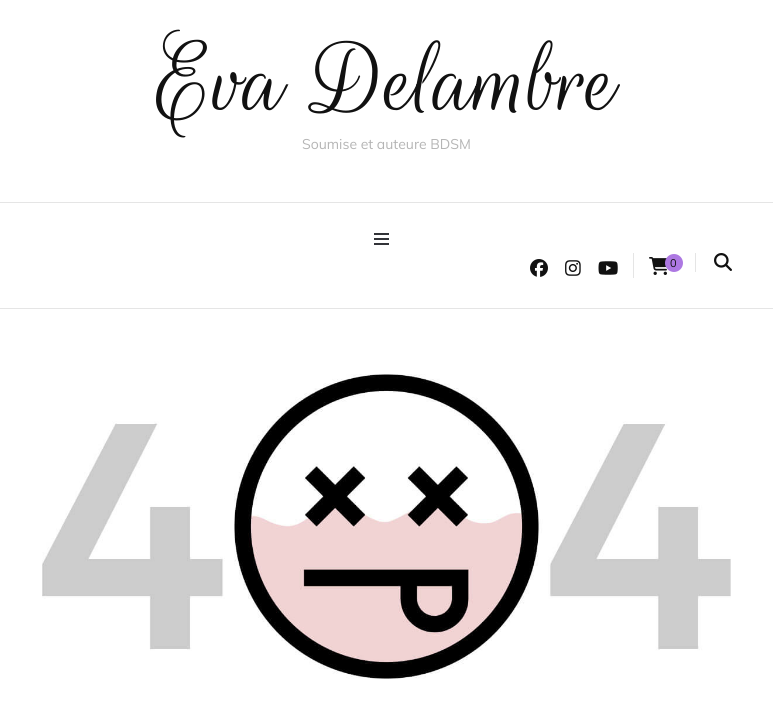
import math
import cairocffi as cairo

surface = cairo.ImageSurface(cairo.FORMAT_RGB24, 773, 715)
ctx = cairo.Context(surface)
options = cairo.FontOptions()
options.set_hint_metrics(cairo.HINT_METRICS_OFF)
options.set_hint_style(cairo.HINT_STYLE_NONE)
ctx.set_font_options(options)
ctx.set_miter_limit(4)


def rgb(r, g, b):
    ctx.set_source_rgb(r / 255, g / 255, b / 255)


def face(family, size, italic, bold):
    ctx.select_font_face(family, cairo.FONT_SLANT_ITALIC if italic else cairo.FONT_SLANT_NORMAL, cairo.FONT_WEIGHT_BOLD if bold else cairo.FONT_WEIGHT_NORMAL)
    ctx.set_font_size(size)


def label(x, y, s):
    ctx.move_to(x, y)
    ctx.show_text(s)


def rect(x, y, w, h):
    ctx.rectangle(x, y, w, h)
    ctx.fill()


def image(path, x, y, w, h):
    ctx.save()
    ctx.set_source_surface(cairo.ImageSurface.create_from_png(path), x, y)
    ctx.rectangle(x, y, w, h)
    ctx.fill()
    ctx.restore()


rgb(255, 255, 255)
ctx.paint()
face('Rouge Script', 107, 0, 0)
rgb(17, 17, 17)
label(155, 110, 'Eva Delambre')
face('Muli', 14, 0, 0)
rgb(181, 181, 181)
label(302, 149, 'Soumise et auteure BDSM')
rgb(229, 229, 229)
rect(0, 202, 773, 1)
rect(0, 308, 773, 1)
rgb(50, 51, 56)
rect(374, 238, 15, 2)
rect(374, 233, 15, 2)
rect(374, 243, 15, 2)
image('image0.png', 530, 259, 18, 18)
image('image1.png', 565, 260, 16, 16)
image('image2.png', 598, 261, 20, 14)
rgb(229, 229, 229)
rect(633, 253, 1, 25)
image('image3.png', 649, 257, 18, 18)
rgb(173, 120, 226)
ctx.arc(674, 263, 9, 0, 2 * math.pi)
ctx.fill()
face('Muli', 11, 0, 0)
rgb(17, 17, 17)
label(670, 267, '0')
rgb(229, 229, 229)
rect(695, 253, 1, 19)
image('image4.png', 714, 253, 18, 18)
image('image5.png', 42, 374, 689, 305)
surface.write_to_png('render.png')
